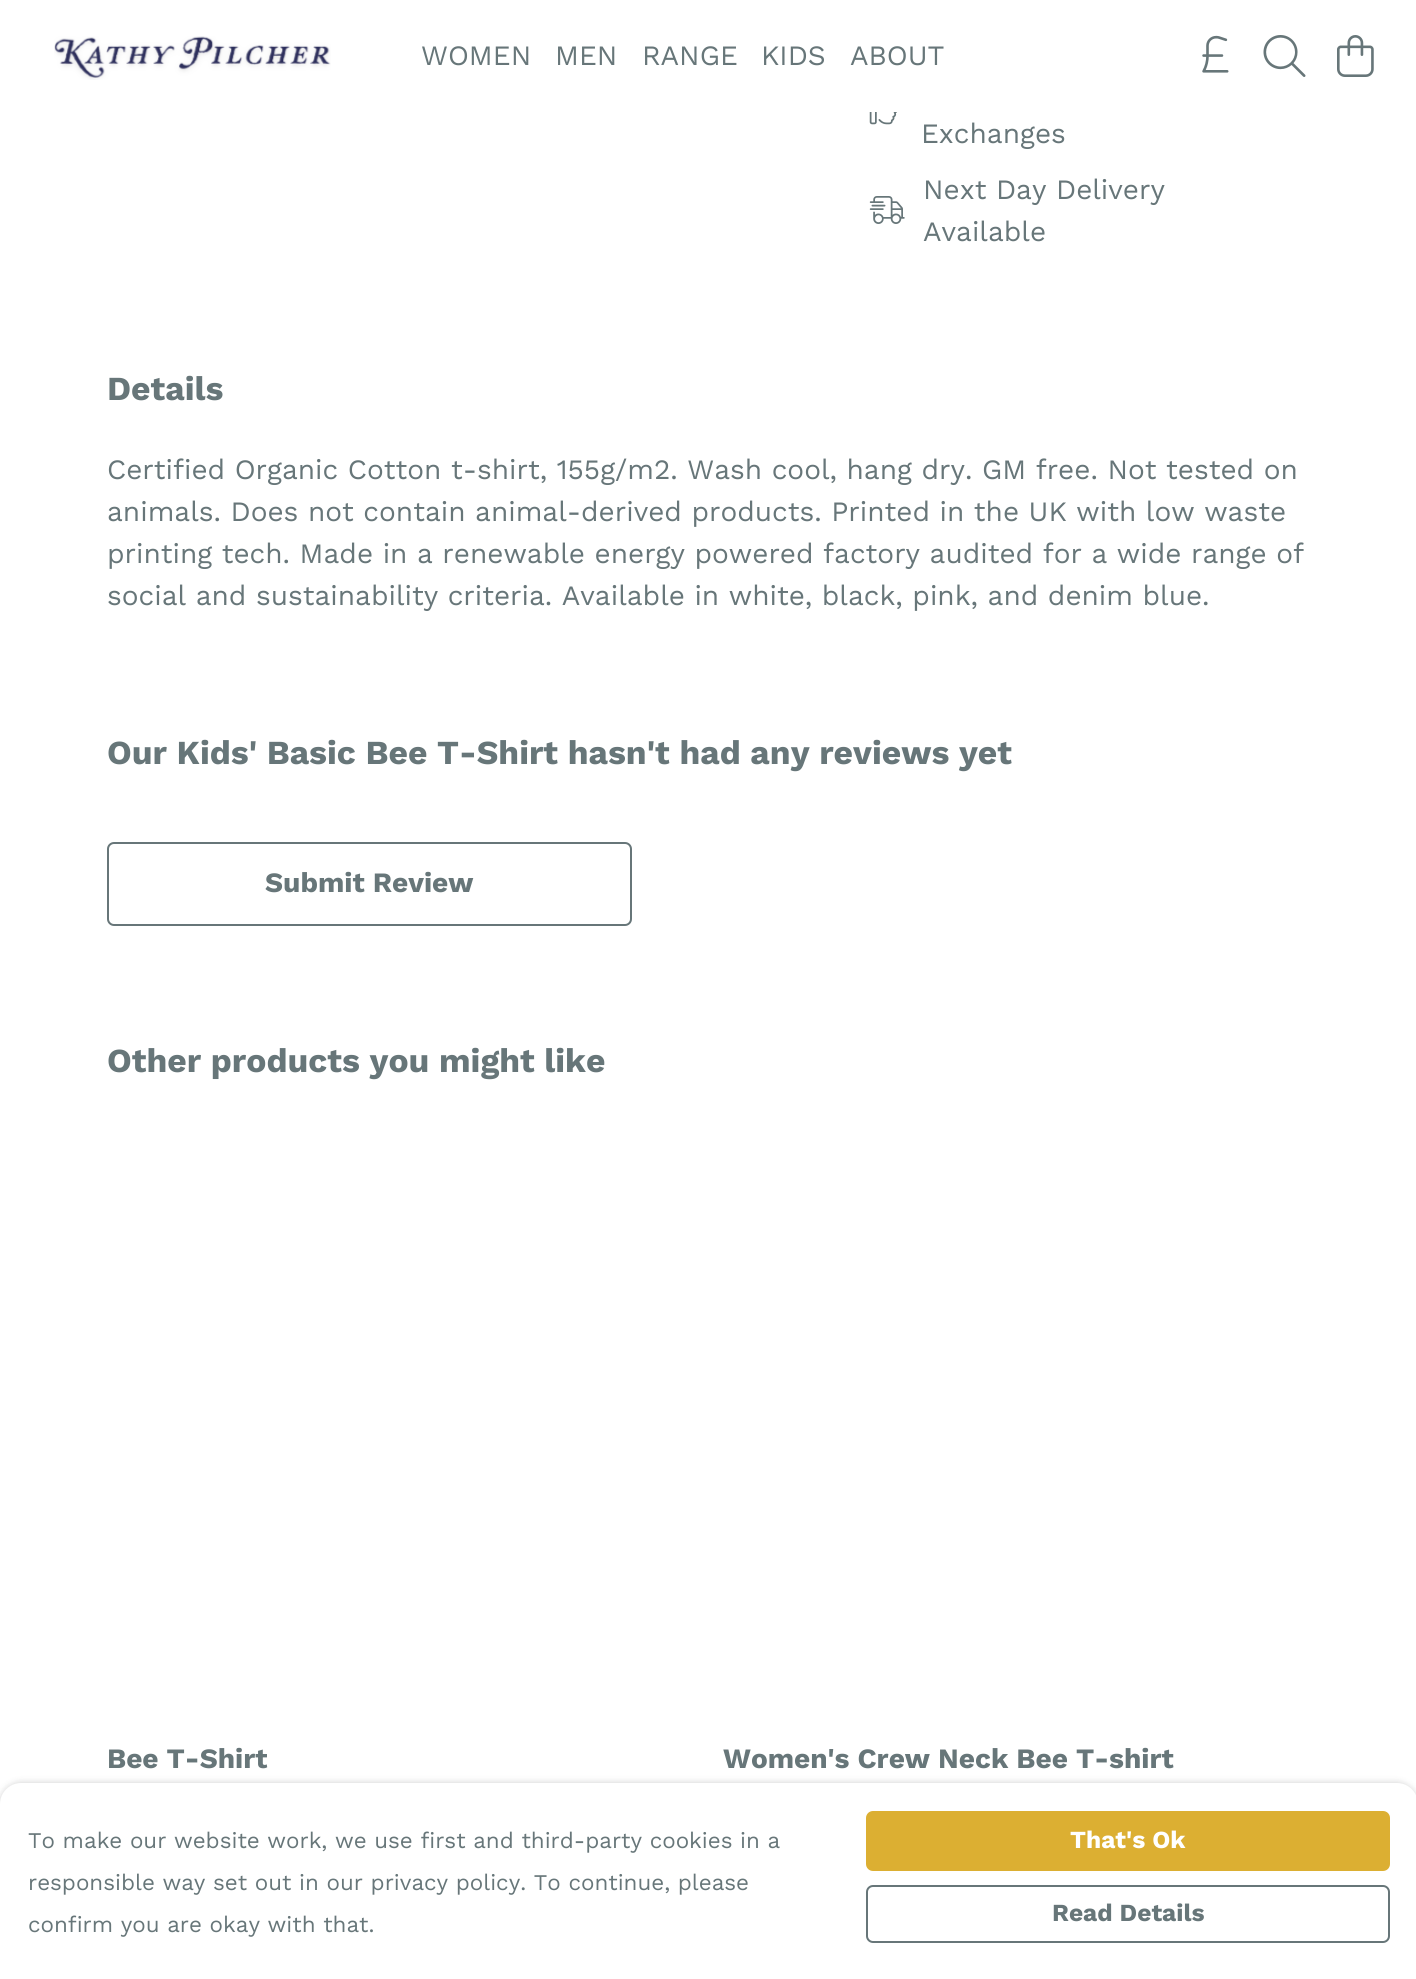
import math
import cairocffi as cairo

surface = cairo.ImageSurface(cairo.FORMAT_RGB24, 1416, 1979)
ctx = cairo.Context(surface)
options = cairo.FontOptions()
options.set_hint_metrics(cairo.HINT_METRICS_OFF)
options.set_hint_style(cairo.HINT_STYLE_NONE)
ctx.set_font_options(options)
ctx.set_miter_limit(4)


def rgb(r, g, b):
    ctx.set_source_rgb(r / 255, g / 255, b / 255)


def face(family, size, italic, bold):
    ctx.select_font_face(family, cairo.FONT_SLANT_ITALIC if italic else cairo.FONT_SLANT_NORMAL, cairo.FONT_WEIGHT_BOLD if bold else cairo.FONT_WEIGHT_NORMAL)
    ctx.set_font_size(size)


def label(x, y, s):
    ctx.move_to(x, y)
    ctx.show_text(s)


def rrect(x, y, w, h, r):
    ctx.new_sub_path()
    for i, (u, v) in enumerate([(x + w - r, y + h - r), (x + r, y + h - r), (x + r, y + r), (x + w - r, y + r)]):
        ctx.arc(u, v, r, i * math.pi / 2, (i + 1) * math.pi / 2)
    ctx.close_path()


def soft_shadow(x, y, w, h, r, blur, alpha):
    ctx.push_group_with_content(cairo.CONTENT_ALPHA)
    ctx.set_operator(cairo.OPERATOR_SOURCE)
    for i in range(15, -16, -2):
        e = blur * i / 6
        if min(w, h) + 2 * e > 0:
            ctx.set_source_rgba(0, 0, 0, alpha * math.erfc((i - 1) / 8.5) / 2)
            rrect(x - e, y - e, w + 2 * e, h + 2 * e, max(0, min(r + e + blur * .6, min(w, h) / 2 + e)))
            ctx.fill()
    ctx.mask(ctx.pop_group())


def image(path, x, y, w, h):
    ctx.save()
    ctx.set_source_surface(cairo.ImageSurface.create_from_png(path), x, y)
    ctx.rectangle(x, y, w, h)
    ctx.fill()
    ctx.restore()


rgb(255, 255, 255)
ctx.paint()
image('image0.png', 54, 36, 277, 44)
face('Work Sans', 28, 0, 0)
rgb(103, 118, 121)
label(421, 65, 'WOMEN')
label(555, 65, 'MEN')
label(642, 65, 'RANGE')
label(761, 65, 'KIDS')
label(850, 65, 'ABOUT')
image('image1.png', 1202, 35, 27, 38)
image('image2.png', 1263, 35, 43, 42)
image('image3.png', 1337, 35, 37, 42)
image('image4.png', 869, 112, 28, 13)
label(921, 143, 'Exchanges')
label(923, 199, 'Next Day Delivery')
image('image5.png', 869, 196, 36, 28)
label(923, 241, 'Available')
face('Work Sans', 33.6, 0, 1)
label(107, 400, 'Details')
face('Work Sans', 28, 0, 0)
label(107, 479, 'Certified Organic Cotton t-shirt, 155g/m2. Wash cool, hang dry. GM free. Not tested on')
label(107, 521, 'animals. Does not contain animal-derived products. Printed in the UK with low waste')
label(107, 563, 'printing tech. Made in a renewable energy powered factory audited for a wide range of')
label(107, 605, 'social and sustainability criteria. Available in white, black, pink, and denim blue.')
face('Work Sans', 33.6, 0, 1)
label(107, 764, 'Our Kids\' Basic Bee T-Shirt hasn\'t had any reviews yet')
rrect(108, 843, 523, 82, 6)
ctx.stroke()
face('Work Sans', 28, 0, 1)
label(265, 892, 'Submit Review')
face('Work Sans', 33.6, 0, 1)
label(107, 1072, 'Other products you might like')
face('Work Sans', 28, 0, 1)
label(107, 1768, 'Bee T-Shirt')
label(723, 1768, 'Women\'s Crew Neck Bee T-shirt')
rgb(0, 0, 0)
soft_shadow(0, 1783, 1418, 196, 21, 3.5, 0.2)
rgb(255, 255, 255)
ctx.new_path()
ctx.move_to(21, 1783)
ctx.line_to(1397, 1783)
ctx.curve_to(1408.5, 1783, 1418, 1792.5, 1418, 1804)
ctx.line_to(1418, 1979)
ctx.line_to(0, 1979)
ctx.line_to(0, 1804)
ctx.curve_to(0, 1792.5, 9.5, 1783, 21, 1783)
ctx.close_path()
ctx.fill()
face('Work Sans', 22.4, 0, 0)
rgb(103, 118, 121)
label(28, 1848, 'To make our website work, we use first and third-party cookies in a')
label(28, 1890, 'responsible way set out in our privacy policy. To continue, please')
label(28, 1932, 'confirm you are okay with that.')
rgb(220, 175, 50)
rrect(866, 1811, 524, 60, 7)
ctx.fill()
face('Work Sans', 24.5, 0, 1)
rgb(255, 255, 255)
label(1070, 1848, 'That\'s Ok')
rrect(867, 1886, 522, 56, 6)
rgb(103, 118, 121)
ctx.stroke()
label(1052, 1921, 'Read Details')
surface.write_to_png('render.png')
